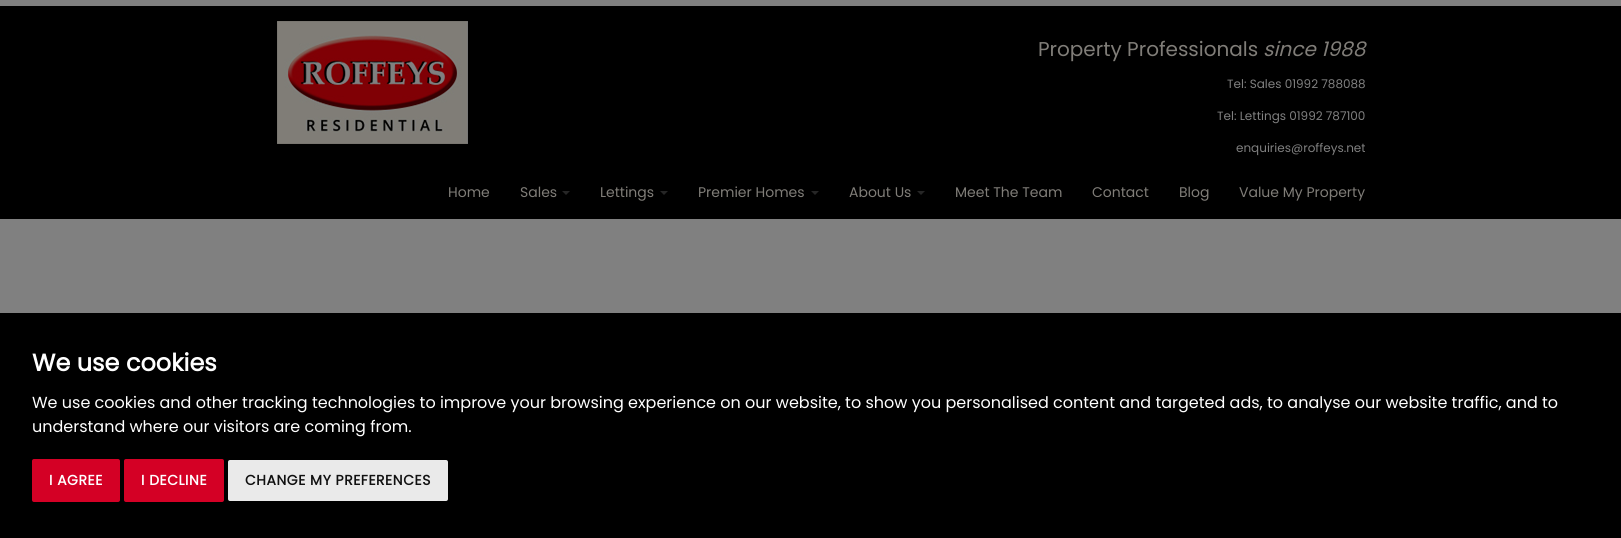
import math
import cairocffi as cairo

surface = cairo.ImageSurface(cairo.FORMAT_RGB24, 1621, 538)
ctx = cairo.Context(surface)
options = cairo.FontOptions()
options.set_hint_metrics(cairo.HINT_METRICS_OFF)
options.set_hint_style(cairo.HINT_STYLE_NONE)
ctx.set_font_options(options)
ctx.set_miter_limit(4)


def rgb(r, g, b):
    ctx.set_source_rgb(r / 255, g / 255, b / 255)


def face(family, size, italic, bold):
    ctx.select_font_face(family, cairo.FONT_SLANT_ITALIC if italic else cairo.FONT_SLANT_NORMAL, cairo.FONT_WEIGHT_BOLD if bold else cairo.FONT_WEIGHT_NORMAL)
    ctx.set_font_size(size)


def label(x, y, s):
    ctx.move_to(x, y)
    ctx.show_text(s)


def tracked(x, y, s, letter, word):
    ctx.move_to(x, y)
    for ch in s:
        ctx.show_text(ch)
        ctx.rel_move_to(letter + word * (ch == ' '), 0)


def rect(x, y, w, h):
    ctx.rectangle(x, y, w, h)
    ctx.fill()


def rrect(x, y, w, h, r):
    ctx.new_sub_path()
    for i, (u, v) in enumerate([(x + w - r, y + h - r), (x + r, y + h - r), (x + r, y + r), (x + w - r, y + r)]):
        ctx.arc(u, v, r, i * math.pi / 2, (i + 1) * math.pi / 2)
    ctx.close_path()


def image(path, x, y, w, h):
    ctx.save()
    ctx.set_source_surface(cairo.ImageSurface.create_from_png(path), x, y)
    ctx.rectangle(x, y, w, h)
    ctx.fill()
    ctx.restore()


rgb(128, 128, 128)
ctx.paint()
rgb(0, 0, 0)
rect(0, 6, 1621, 213)
image('image0.png', 277, 21, 191, 123)
face('Poppins', 20, 0, 0)
rgb(128, 125, 120)
label(1038, 56, 'Property Professionals')
face('Poppins', 20, 1, 0)
label(1263, 56, 'since 1988')
face('Poppins', 12, 0, 0)
rgb(128, 128, 128)
label(1227, 88, 'Tel: Sales 01992 788088')
label(1217, 120, 'Tel: Lettings 01992 787100')
label(1236, 152, 'enquiries@roffeys.net')
face('Poppins', 14, 0, 0)
rgb(128, 125, 120)
label(448, 197, 'Home')
label(520, 197, 'Sales')
rgb(38, 38, 38)
ctx.new_path()
ctx.move_to(562, 191)
ctx.line_to(570, 191)
ctx.line_to(566, 195)
ctx.close_path()
ctx.fill()
rgb(128, 125, 120)
label(600, 197, 'Lettings')
rgb(38, 38, 38)
ctx.new_path()
ctx.move_to(660, 191)
ctx.line_to(668, 191)
ctx.line_to(664, 195)
ctx.close_path()
ctx.fill()
rgb(128, 125, 120)
label(698, 197, 'Premier Homes')
rgb(38, 38, 38)
ctx.new_path()
ctx.move_to(811, 191)
ctx.line_to(819, 191)
ctx.line_to(815, 195)
ctx.close_path()
ctx.fill()
rgb(128, 125, 120)
label(849, 197, 'About Us')
rgb(38, 38, 38)
ctx.new_path()
ctx.move_to(917, 191)
ctx.line_to(925, 191)
ctx.line_to(921, 195)
ctx.close_path()
ctx.fill()
rgb(128, 125, 120)
label(955, 197, 'Meet The Team')
label(1092, 197, 'Contact')
label(1179, 197, 'Blog')
label(1239, 197, 'Value My Property')
rgb(0, 0, 0)
rect(0, 313, 1621, 225)
face('Poppins', 24, 0, 1)
rgb(255, 255, 255)
label(32, 371, 'We use cookies')
face('Poppins', 16, 0, 0)
label(32, 408, 'We use cookies and other tracking technologies to improve your browsing experience on our website, to show you personalised content and targeted ads, to analyse our website traffic, and to')
label(32, 432, 'understand where our visitors are coming from.')
rgb(212, 0, 37)
rrect(32, 459, 88, 43, 2)
ctx.fill()
face('Poppins', 14, 0, 1)
rgb(255, 255, 255)
tracked(49, 485, 'I AGREE', 0.5, 0)
rgb(212, 0, 37)
rrect(124, 459, 100, 43, 2)
ctx.fill()
rgb(255, 255, 255)
tracked(141, 485, 'I DECLINE', 0.5, 0)
rgb(234, 234, 234)
rrect(228, 460, 220, 41, 2)
ctx.fill()
rgb(17, 17, 17)
tracked(245, 485, 'CHANGE MY PREFERENCES', 0.5, 0)
surface.write_to_png('render.png')
